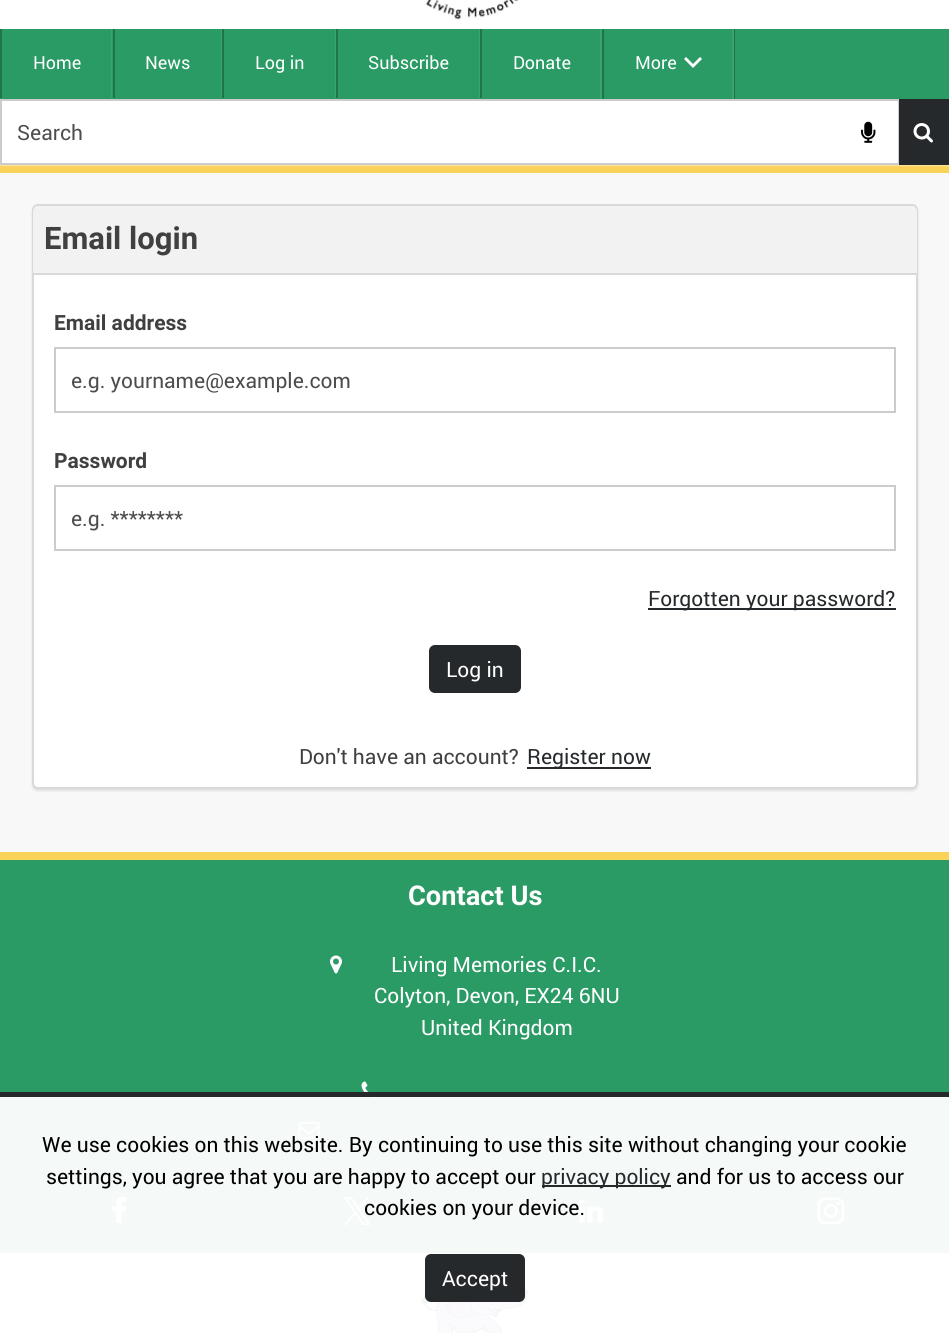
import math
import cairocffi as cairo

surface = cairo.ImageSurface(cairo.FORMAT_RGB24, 949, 1333)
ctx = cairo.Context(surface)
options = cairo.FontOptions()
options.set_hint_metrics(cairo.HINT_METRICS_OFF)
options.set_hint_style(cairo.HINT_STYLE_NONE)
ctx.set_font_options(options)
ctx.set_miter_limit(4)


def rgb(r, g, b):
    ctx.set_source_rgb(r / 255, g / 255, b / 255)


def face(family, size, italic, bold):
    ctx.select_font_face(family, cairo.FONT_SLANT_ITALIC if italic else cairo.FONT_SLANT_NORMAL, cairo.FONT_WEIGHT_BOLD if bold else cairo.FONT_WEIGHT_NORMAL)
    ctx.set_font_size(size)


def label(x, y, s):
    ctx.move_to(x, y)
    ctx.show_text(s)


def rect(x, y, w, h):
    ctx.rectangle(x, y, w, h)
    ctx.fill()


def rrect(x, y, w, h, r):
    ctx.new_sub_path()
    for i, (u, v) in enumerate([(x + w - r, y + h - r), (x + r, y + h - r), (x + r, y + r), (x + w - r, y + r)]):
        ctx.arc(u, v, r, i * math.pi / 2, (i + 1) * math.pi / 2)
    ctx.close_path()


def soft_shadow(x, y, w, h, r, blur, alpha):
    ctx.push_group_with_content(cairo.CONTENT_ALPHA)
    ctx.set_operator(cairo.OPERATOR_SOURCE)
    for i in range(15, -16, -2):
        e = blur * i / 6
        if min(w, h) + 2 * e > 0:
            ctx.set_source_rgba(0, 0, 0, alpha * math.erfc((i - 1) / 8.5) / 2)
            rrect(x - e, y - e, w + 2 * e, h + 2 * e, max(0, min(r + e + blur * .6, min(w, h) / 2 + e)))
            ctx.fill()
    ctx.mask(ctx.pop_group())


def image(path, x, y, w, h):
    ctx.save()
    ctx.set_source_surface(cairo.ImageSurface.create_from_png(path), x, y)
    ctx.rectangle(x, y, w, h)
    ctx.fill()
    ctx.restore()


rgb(248, 248, 248)
ctx.paint()
rgb(255, 255, 255)
rect(0, 0, 949, 29)
rgb(250, 210, 88)
rect(0, 165, 949, 8)
image('image0.png', 426, 0, 93, 20)
rgb(255, 255, 255)
soft_shadow(0, 29, 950, 136, 0, 1, 1)
rgb(42, 155, 101)
rect(0, 29, 949, 70)
rgb(32, 116, 76)
rect(0, 29, 2, 69)
face('Roboto', 18, 0, 0)
rgb(255, 255, 255)
label(33, 69, 'Home')
rgb(58, 163, 113)
ctx.new_path()
ctx.move_to(111, 29)
ctx.line_to(111, 98)
ctx.line_to(221, 98)
ctx.line_to(112, 98)
ctx.line_to(112, 29)
ctx.close_path()
ctx.fill()
rgb(32, 116, 76)
rect(113, 29, 2, 69)
rgb(255, 255, 255)
label(145, 69, 'News')
rgb(58, 163, 113)
ctx.new_path()
ctx.move_to(221, 29)
ctx.line_to(221, 98)
ctx.line_to(335, 98)
ctx.line_to(222, 98)
ctx.line_to(222, 29)
ctx.close_path()
ctx.fill()
rgb(32, 116, 76)
rect(222, 29, 2, 69)
rgb(255, 255, 255)
label(255, 69, 'Log in')
rgb(58, 163, 113)
ctx.new_path()
ctx.move_to(335, 29)
ctx.line_to(335, 98)
ctx.line_to(479, 98)
ctx.line_to(336, 98)
ctx.line_to(336, 29)
ctx.close_path()
ctx.fill()
rgb(32, 116, 76)
rect(336, 29, 2, 69)
rgb(255, 255, 255)
label(368, 69, 'Subscribe')
rgb(58, 163, 113)
ctx.new_path()
ctx.move_to(479, 29)
ctx.line_to(479, 98)
ctx.line_to(600, 98)
ctx.line_to(480, 98)
ctx.line_to(480, 29)
ctx.close_path()
ctx.fill()
rgb(32, 116, 76)
rect(480, 29, 2, 69)
rgb(255, 255, 255)
label(513, 69, 'Donate')
rgb(58, 163, 113)
rect(600, 29, 2, 70)
rect(732, 29, 2, 70)
rgb(32, 116, 76)
rect(734, 29, 1, 70)
rect(602, 29, 2, 70)
rgb(255, 255, 255)
label(635, 69, 'More')
ctx.new_path()
ctx.move_to(686, 57)
ctx.line_to(693, 64)
ctx.line_to(700, 57)
ctx.line_to(702, 59)
ctx.line_to(693, 68)
ctx.line_to(684, 59)
ctx.close_path()
ctx.fill()
ctx.rectangle(1, 100, 898, 64)
rgb(204, 204, 204)
ctx.stroke()
face('Roboto', 21, 0, 0)
rgb(77, 77, 77)
label(17, 140, 'Search')
image('image1.png', 861, 121, 15, 22)
rgb(37, 41, 43)
rect(899, 99, 50, 66)
image('image2.png', 913, 123, 20, 20)
rgb(0, 0, 0)
soft_shadow(32, 206, 886, 585, 6, 1, 0.1)
rgb(255, 255, 255)
rrect(33, 205, 884, 583, 5)
ctx.fill_preserve()
rgb(217, 217, 217)
ctx.stroke()
rgb(242, 242, 242)
ctx.new_path()
ctx.move_to(39, 206)
ctx.line_to(911, 206)
ctx.curve_to(914.5, 206, 917, 208.5, 917, 212)
ctx.line_to(917, 275)
ctx.line_to(33, 275)
ctx.line_to(33, 212)
ctx.curve_to(33, 208.5, 35.5, 206, 39, 206)
ctx.close_path()
ctx.fill()
rgb(217, 217, 217)
rect(33, 273, 884, 2)
face('Roboto', 31, 0, 1)
rgb(64, 64, 64)
label(44, 249, 'Email login')
face('Roboto', 21, 0, 1)
label(54, 330, 'Email address')
ctx.rectangle(55, 348, 840, 64)
rgb(204, 204, 204)
ctx.stroke()
face('Roboto', 21, 0, 0)
rgb(77, 77, 77)
label(71, 388, 'e.g. yourname@example.com')
face('Roboto', 21, 0, 1)
rgb(64, 64, 64)
label(54, 468, 'Password')
ctx.rectangle(55, 486, 840, 64)
rgb(204, 204, 204)
ctx.stroke()
face('Roboto', 21, 0, 0)
rgb(77, 77, 77)
label(71, 526, 'e.g. ********')
rgb(37, 41, 43)
rect(648, 608, 248, 2)
label(648, 606, 'Forgotten your password?')
rrect(430, 646, 90, 46, 5)
ctx.fill_preserve()
ctx.stroke()
rgb(255, 255, 255)
label(446, 677, 'Log in')
rgb(64, 64, 64)
label(299, 764, 'Don\'t have an account?')
rgb(37, 41, 43)
rect(527, 767, 124, 2)
label(527, 764, 'Register now')
rgb(42, 155, 101)
rect(0, 860, 949, 393)
rgb(250, 210, 88)
rect(0, 852, 949, 8)
face('Roboto', 27.25, 0, 1)
rgb(255, 255, 255)
label(408, 905, 'Contact Us')
image('image3.png', 330, 955, 12, 19)
face('Roboto', 21, 0, 0)
label(391, 972, 'Living Memories C.I.C.')
label(374, 1003, 'Colyton, Devon, EX24 6NU')
label(421, 1035, 'United Kingdom')
image('image4.png', 361, 1081, 16, 17)
image('image5.png', 298, 1122, 22, 17)
image('image6.png', 112, 1197, 14, 26)
image('image7.png', 343, 1197, 28, 28)
image('image8.png', 579, 1199, 24, 24)
image('image9.png', 817, 1197, 28, 28)
rect(0, 1253, 949, 80)
image('image10.png', 420, 1273, 108, 60)
ctx.set_source_rgba(1, 1, 1, 0.95)
rect(0, 1097, 949, 236)
rgb(37, 41, 43)
rect(0, 1092, 949, 5)
rgb(0, 0, 0)
label(42, 1152, 'We use cookies on this website. By continuing to use this site without changing your cookie')
label(46, 1184, 'settings, you agree that you are happy to accept our')
rgb(37, 41, 43)
rect(542, 1185, 129, 2)
label(541, 1184, 'privacy policy')
rgb(0, 0, 0)
label(676, 1184, 'and for us to access our')
label(364, 1215, 'cookies on your device.')
rgb(37, 41, 43)
rrect(426, 1255, 98, 46, 5)
ctx.fill_preserve()
ctx.stroke()
rgb(255, 255, 255)
label(442, 1286, 'Accept')
surface.write_to_png('render.png')
